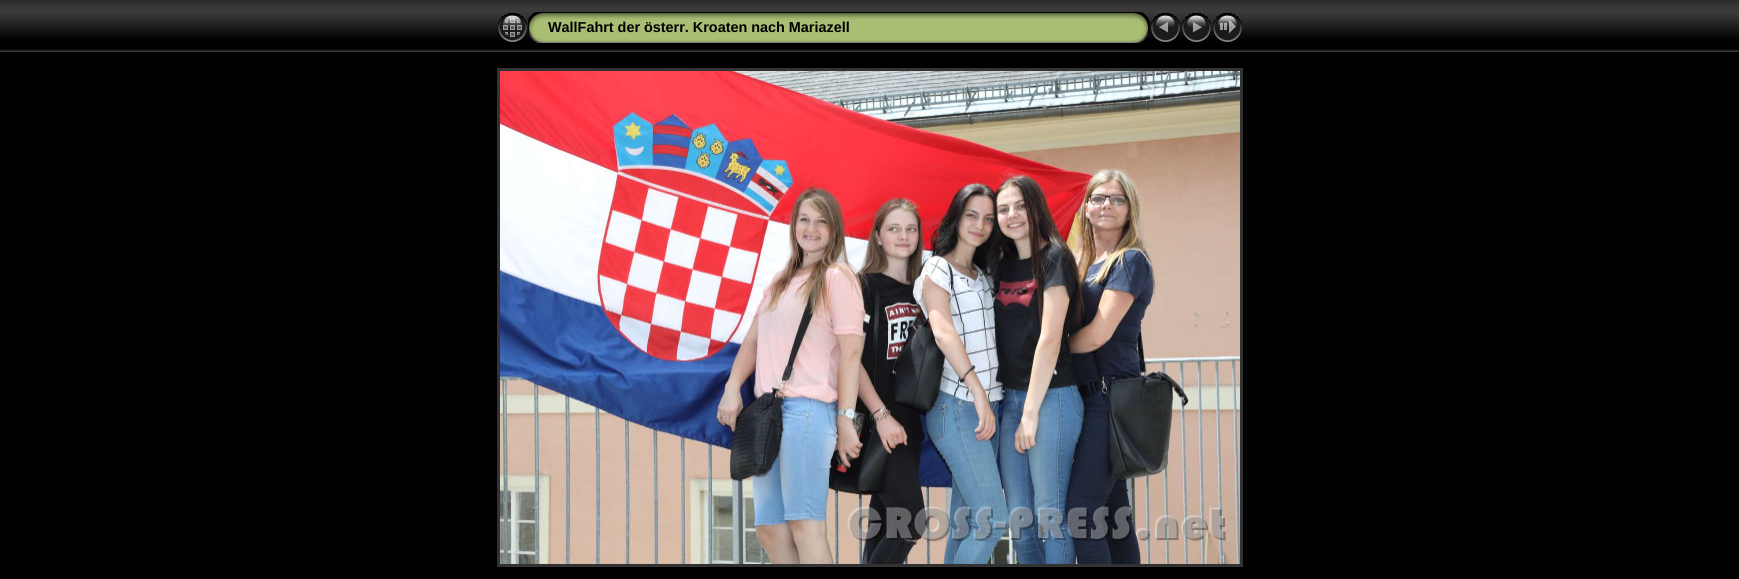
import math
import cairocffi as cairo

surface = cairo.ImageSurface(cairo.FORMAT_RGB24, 1739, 579)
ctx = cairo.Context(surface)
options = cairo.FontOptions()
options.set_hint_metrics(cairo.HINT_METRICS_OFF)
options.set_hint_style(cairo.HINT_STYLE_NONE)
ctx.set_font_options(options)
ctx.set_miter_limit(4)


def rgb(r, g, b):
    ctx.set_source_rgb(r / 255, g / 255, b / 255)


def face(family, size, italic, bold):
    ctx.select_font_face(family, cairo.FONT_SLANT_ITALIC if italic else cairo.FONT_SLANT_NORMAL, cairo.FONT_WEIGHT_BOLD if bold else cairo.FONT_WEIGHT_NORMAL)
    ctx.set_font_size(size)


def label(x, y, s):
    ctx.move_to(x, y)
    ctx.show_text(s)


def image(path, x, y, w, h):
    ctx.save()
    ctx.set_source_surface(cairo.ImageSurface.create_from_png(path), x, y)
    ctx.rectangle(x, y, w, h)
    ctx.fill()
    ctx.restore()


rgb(0, 0, 0)
ctx.paint()
image('image0.png', 0, 0, 1739, 52)
image('image1.png', 498, 13, 29, 29)
image('image2.png', 528, 12, 20, 31)
image('image3.png', 548, 12, 582, 31)
face('Liberation Sans', 14.4, 0, 1)
rgb(0, 0, 0)
label(548, 32, 'WallFahrt der österr. Kroaten nach Mariazell')
image('image4.png', 1130, 12, 20, 31)
image('image5.png', 1151, 13, 29, 29)
image('image6.png', 1182, 13, 29, 29)
image('image7.png', 1213, 13, 29, 29)
ctx.rectangle(498.5, 69.5, 743, 496)
rgb(51, 51, 51)
ctx.set_line_width(3)
ctx.stroke()
image('image8.png', 500, 71, 740, 493)
surface.write_to_png('render.png')
